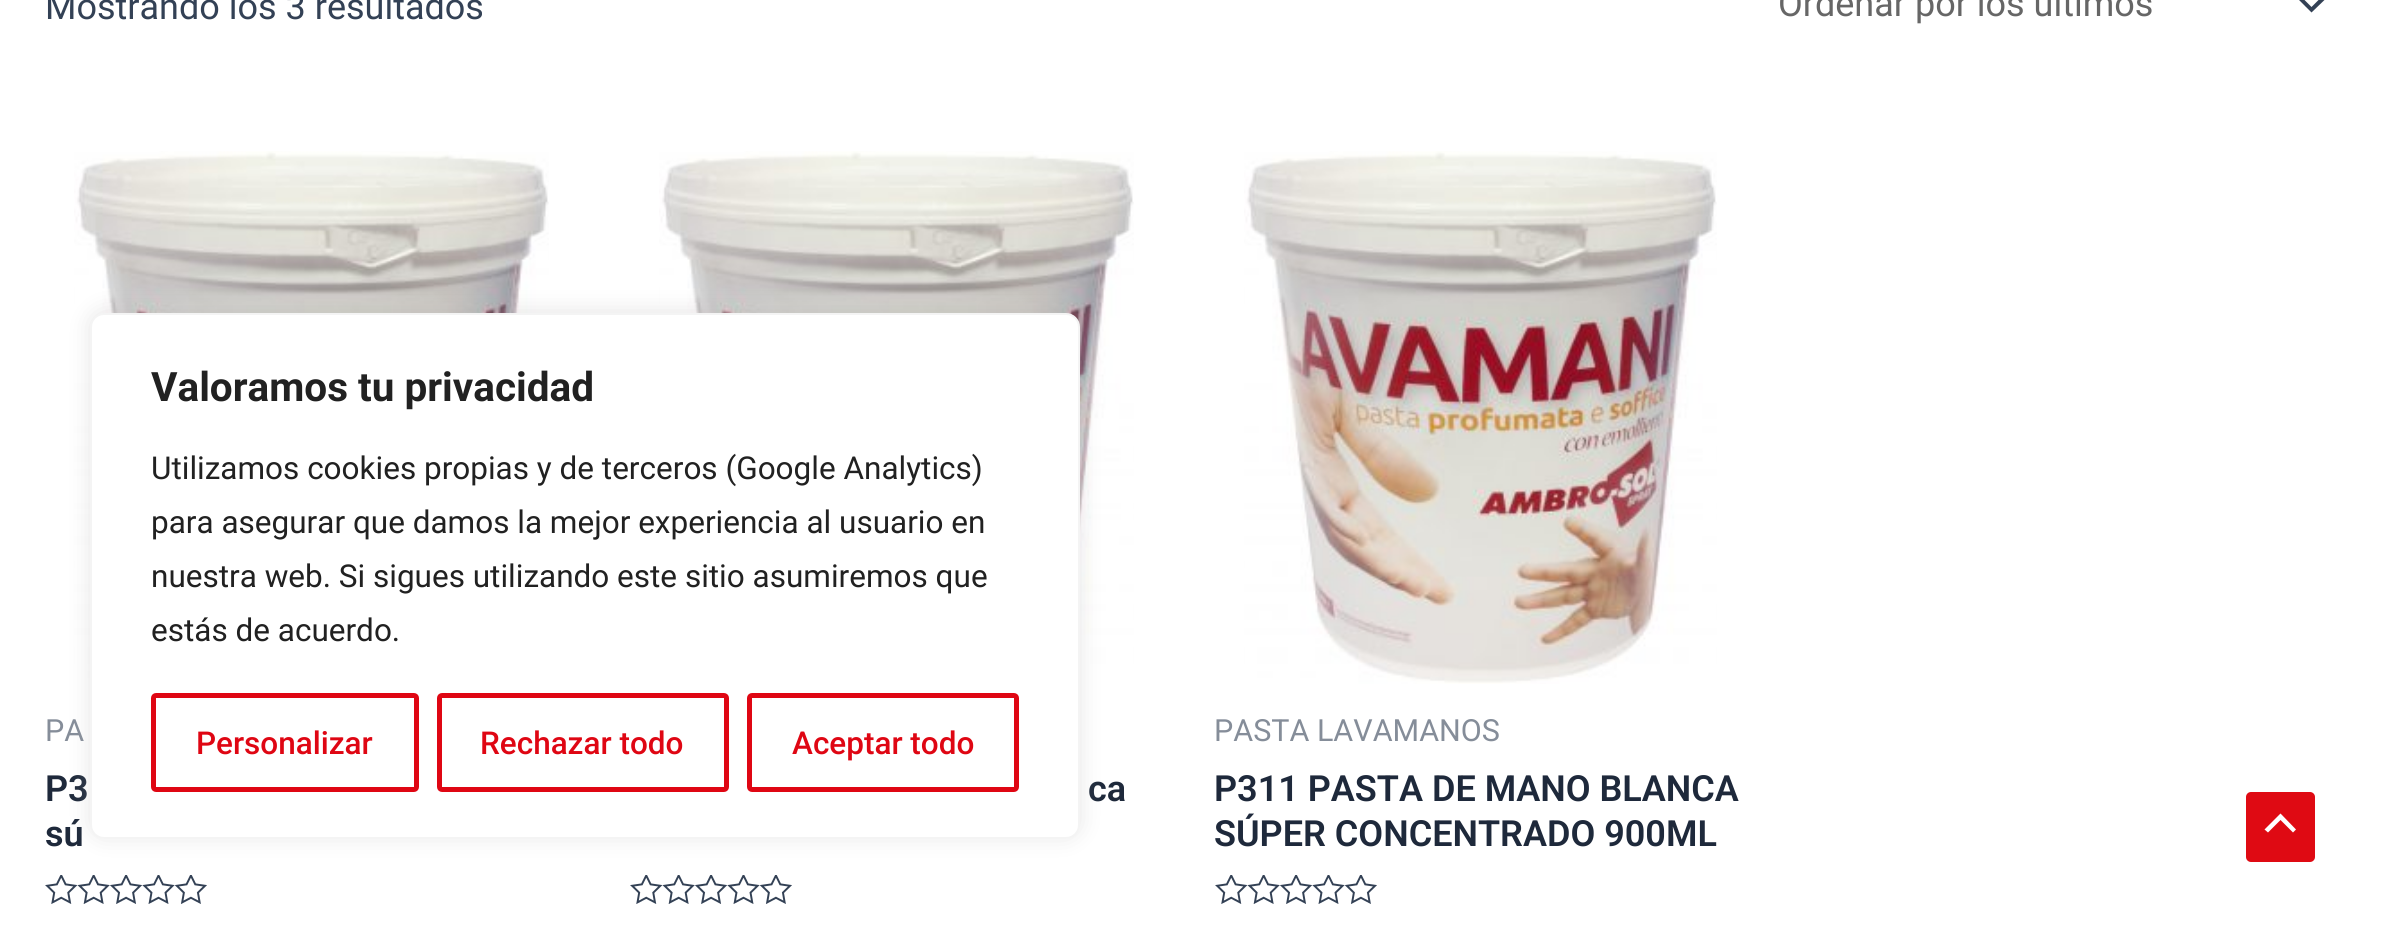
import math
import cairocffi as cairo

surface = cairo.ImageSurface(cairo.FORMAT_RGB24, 2382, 928)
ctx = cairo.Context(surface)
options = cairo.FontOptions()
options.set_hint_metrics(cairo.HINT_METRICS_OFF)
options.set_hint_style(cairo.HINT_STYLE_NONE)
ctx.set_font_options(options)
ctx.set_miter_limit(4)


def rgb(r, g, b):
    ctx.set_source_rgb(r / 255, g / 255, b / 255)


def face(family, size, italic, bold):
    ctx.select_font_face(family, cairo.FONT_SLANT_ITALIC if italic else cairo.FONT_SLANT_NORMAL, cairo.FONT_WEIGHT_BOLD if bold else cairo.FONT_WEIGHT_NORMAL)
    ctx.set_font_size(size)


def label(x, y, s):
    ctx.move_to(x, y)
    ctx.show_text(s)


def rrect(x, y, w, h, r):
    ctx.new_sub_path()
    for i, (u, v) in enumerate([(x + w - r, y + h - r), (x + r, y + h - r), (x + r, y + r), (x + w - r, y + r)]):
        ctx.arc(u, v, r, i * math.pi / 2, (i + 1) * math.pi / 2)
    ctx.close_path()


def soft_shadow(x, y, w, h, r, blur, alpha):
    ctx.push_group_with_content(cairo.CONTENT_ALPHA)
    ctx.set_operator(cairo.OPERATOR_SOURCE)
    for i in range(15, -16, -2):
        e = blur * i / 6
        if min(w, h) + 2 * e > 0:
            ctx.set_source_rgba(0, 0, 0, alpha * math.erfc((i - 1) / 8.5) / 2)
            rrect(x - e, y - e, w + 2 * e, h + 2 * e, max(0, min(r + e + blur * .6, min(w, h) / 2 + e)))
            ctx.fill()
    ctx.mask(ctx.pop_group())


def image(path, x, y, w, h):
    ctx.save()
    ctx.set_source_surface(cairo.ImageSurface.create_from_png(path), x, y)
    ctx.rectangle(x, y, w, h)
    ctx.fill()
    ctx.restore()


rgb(255, 255, 255)
ctx.paint()
face('Roboto', 36, 0, 0)
rgb(51, 65, 85)
label(45, 19, 'Mostrando los 3 resultados')
ctx.new_path()
ctx.move_to(2298, -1)
ctx.line_to(2311.5, 12.5)
ctx.line_to(2325.5, -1)
ctx.line_to(2322.5, -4)
ctx.line_to(2311.5, 7)
ctx.line_to(2300.5, -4)
ctx.close_path()
ctx.fill()
rgb(102, 102, 102)
label(1778, 16, 'Ordenar por los últimos')
image('image0.png', 74, 151, 475, 533)
face('Roboto', 30.5, 0, 0)
rgb(133, 141, 153)
label(45, 741, 'PA')
face('Roboto SemiBold', 36, 0, 0)
rgb(30, 41, 59)
label(45, 801, 'P3')
label(45, 846, 'sú')
image('image1.png', 45, 875, 162, 29)
image('image2.png', 659, 151, 475, 533)
label(1088, 801, 'ca')
image('image1.png', 630, 875, 162, 29)
image('image3.png', 1244, 151, 473, 533)
face('Roboto', 30.5, 0, 0)
rgb(133, 141, 153)
label(1214, 741, 'PASTA LAVAMANOS')
face('Roboto SemiBold', 36, 0, 0)
rgb(30, 41, 59)
label(1214, 801, 'P311 PASTA DE MANO BLANCA')
label(1214, 846, 'SÚPER CONCENTRADO 900ML')
image('image1.png', 1215, 875, 162, 29)
rgb(172, 171, 171)
soft_shadow(90, 311, 990, 526, 14, 11, 0.3)
rgb(255, 255, 255)
rrect(91, 314, 988, 524, 13)
ctx.fill_preserve()
rgb(244, 244, 244)
ctx.stroke()
face('Roboto', 40.5, 0, 1)
rgb(33, 33, 33)
label(151, 401, 'Valoramos tu privacidad')
face('Roboto', 31.5, 0, 0)
label(151, 479, 'Utilizamos cookies propias y de terceros (Google Analytics)')
label(151, 533, 'para asegurar que damos la mejor experiencia al usuario en')
label(151, 587, 'nuestra web. Si sigues utilizando este sitio asumiremos que')
label(151, 641, 'estás de acuerdo.')
rrect(153.5, 695.5, 263, 94, 2.5)
rgb(223, 6, 19)
ctx.set_line_width(5)
ctx.stroke()
face('Roboto Medium', 31.5, 0, 0)
label(196, 754, 'Personalizar')
rrect(439.5, 695.5, 287, 94, 2.5)
ctx.stroke()
label(480, 754, 'Rechazar todo')
rrect(749.5, 695.5, 267, 94, 2.5)
ctx.stroke()
label(792, 754, 'Aceptar todo')
rgb(223, 10, 19)
rrect(2246, 792, 69, 70, 5)
ctx.fill()
rgb(255, 255, 255)
ctx.new_path()
ctx.move_to(2296, 829.5)
ctx.line_to(2280.5, 813.5)
ctx.line_to(2264.5, 829.5)
ctx.line_to(2268, 832.5)
ctx.line_to(2280.5, 820)
ctx.line_to(2293, 832.5)
ctx.close_path()
ctx.fill()
surface.write_to_png('render.png')
